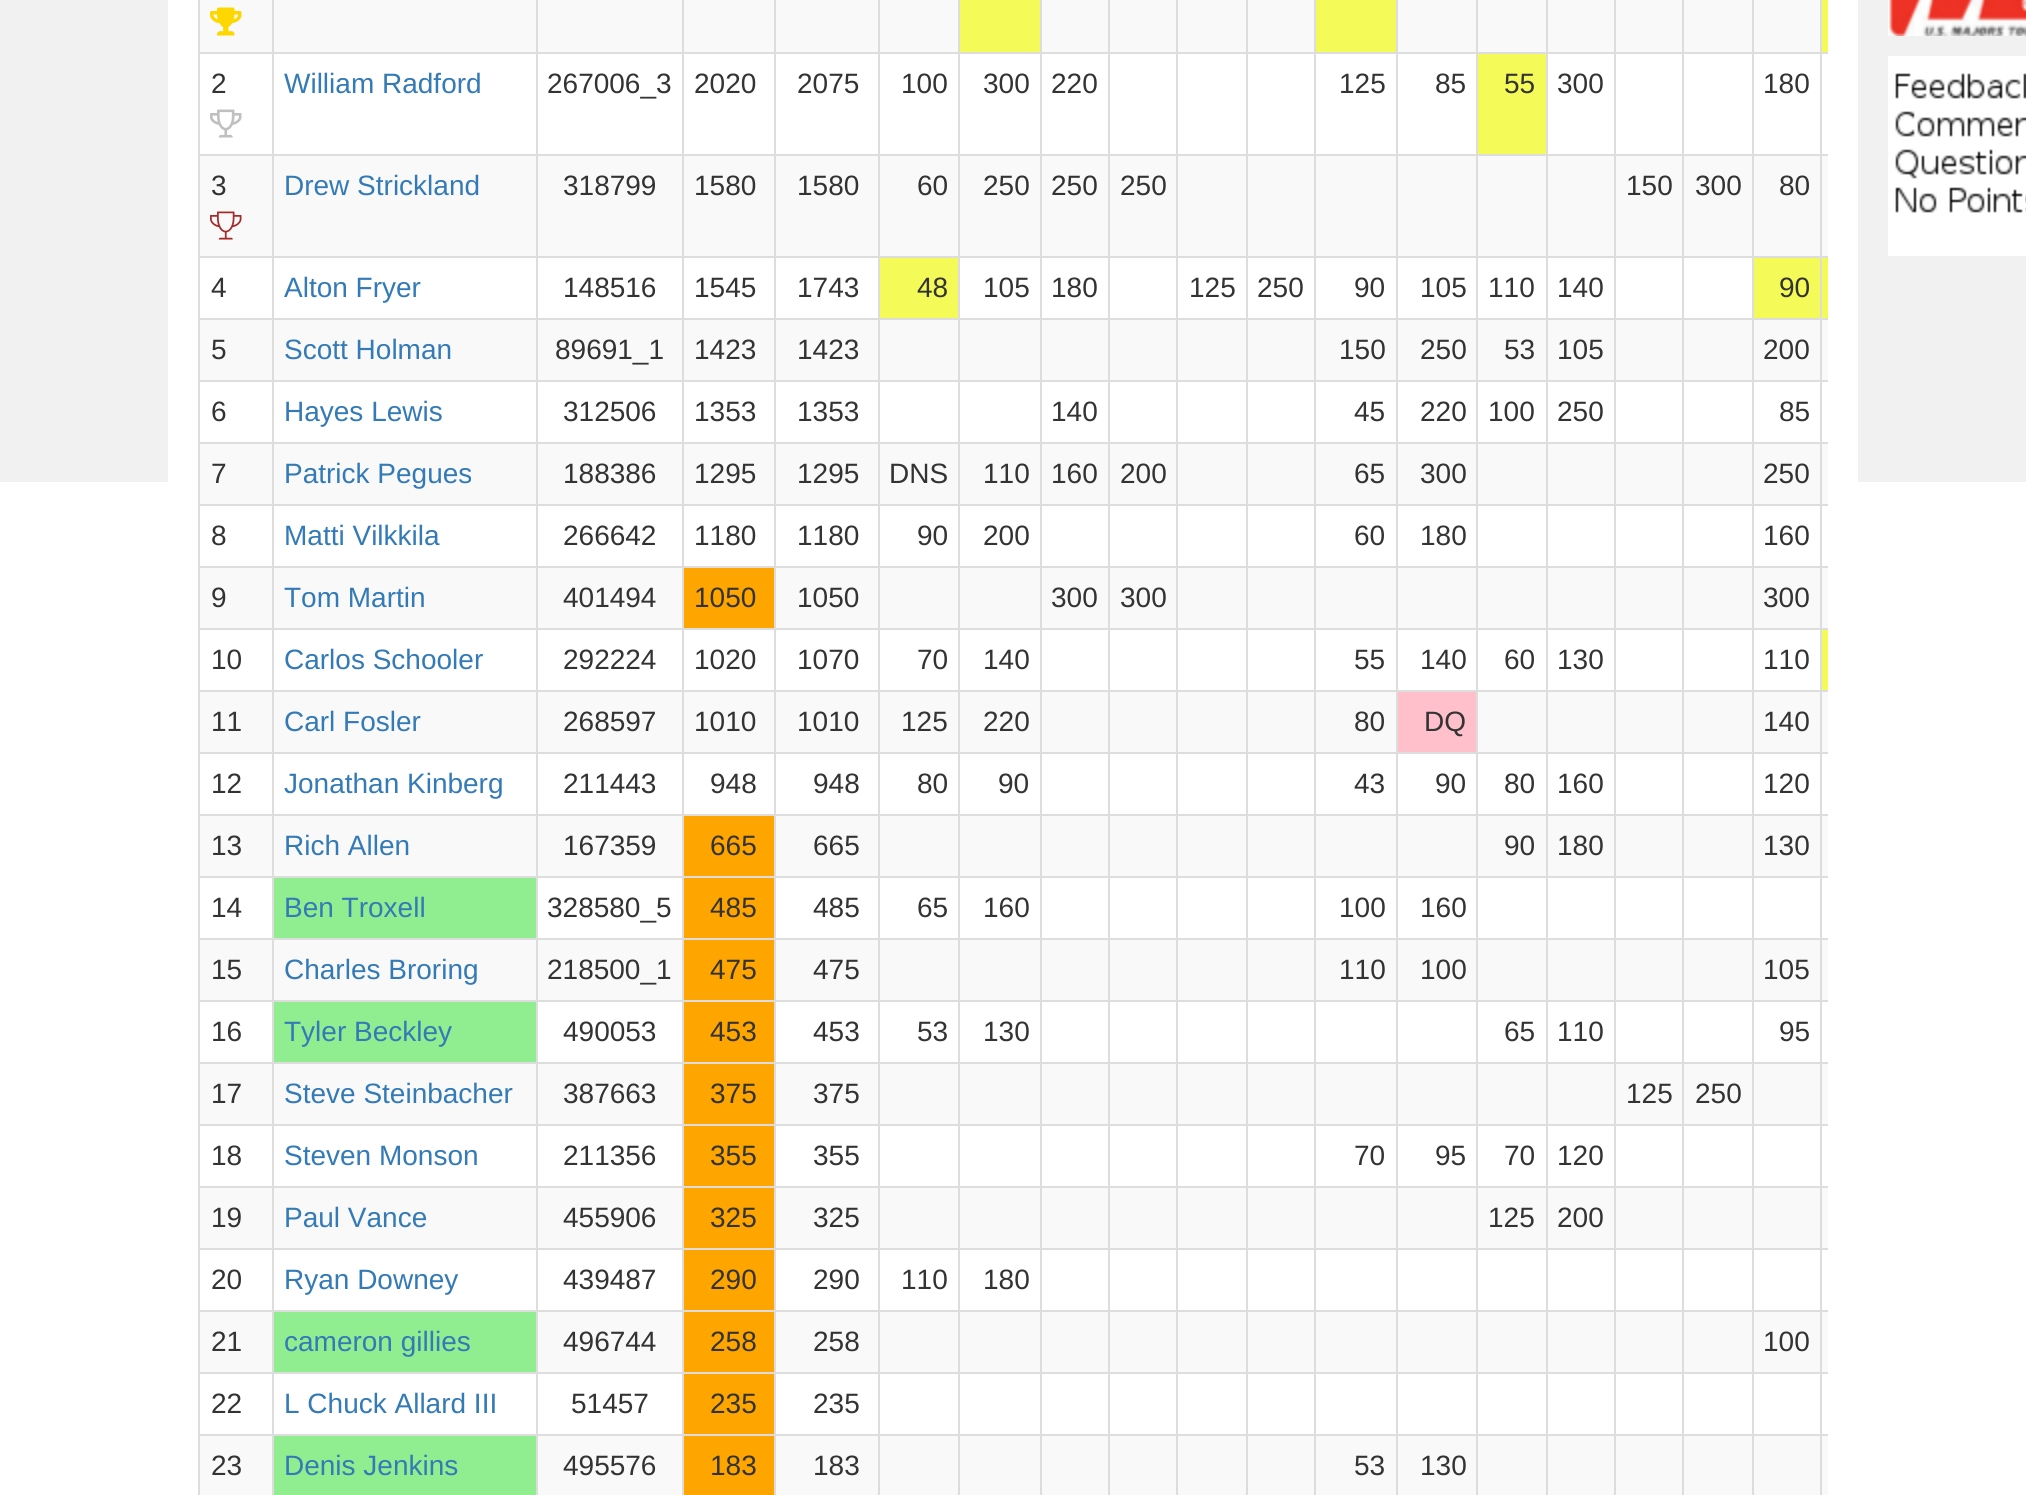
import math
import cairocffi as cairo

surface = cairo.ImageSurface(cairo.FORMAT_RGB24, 2026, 1495)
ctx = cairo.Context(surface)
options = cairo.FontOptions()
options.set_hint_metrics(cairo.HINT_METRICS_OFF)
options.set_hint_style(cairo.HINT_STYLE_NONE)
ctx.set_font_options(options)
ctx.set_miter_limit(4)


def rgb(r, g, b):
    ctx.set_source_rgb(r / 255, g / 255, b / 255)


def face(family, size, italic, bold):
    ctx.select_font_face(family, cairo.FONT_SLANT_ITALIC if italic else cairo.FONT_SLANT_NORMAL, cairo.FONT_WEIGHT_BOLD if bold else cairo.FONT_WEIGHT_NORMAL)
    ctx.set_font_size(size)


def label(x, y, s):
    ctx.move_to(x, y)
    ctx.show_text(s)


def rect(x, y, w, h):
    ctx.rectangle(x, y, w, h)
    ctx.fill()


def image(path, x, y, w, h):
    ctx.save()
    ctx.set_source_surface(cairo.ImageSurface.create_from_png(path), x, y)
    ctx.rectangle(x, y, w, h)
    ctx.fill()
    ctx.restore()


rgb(255, 255, 255)
ctx.paint()
rgb(241, 241, 241)
rect(0, 0, 168, 482)
rgb(221, 221, 221)
rect(198, 0, 2, 1495)
rgb(249, 249, 249)
rect(200, 0, 1620, 52)
image('image0.png', 210, 7, 32, 29)
rgb(221, 221, 221)
rect(1820, 52, 8, 2)
rect(1820, 154, 8, 2)
rgb(249, 249, 249)
rect(200, 156, 1628, 100)
rgb(244, 250, 88)
rect(1822, 256, 6, 62)
rgb(221, 221, 221)
rect(1820, 256, 8, 2)
rect(1820, 318, 8, 2)
rgb(249, 249, 249)
rect(200, 320, 1628, 60)
rgb(221, 221, 221)
rect(1820, 380, 8, 2)
rect(1820, 442, 8, 2)
rgb(249, 249, 249)
rect(200, 444, 1628, 60)
rgb(221, 221, 221)
rect(1820, 504, 8, 2)
rect(1820, 566, 8, 2)
rgb(249, 249, 249)
rect(200, 568, 1628, 60)
rgb(244, 250, 88)
rect(1822, 628, 6, 62)
rgb(221, 221, 221)
rect(1820, 628, 8, 2)
rect(1820, 690, 8, 2)
rgb(249, 249, 249)
rect(200, 692, 1628, 60)
rgb(221, 221, 221)
rect(1820, 752, 8, 2)
rect(1820, 814, 8, 2)
rgb(249, 249, 249)
rect(200, 816, 1628, 60)
rgb(221, 221, 221)
rect(1820, 876, 8, 2)
rect(1820, 938, 8, 2)
rgb(249, 249, 249)
rect(200, 940, 1628, 60)
rgb(221, 221, 221)
rect(1820, 1000, 8, 2)
rect(1820, 1062, 8, 2)
rgb(249, 249, 249)
rect(200, 1064, 1628, 60)
rgb(221, 221, 221)
rect(1820, 1124, 8, 2)
rect(1820, 1186, 8, 2)
rgb(249, 249, 249)
rect(200, 1188, 1628, 60)
rgb(221, 221, 221)
rect(1820, 1248, 8, 2)
rect(1820, 1310, 8, 2)
rgb(249, 249, 249)
rect(200, 1312, 1628, 60)
rgb(221, 221, 221)
rect(1820, 1372, 8, 2)
rect(1820, 1434, 8, 2)
rgb(249, 249, 249)
rect(200, 1436, 1628, 59)
rgb(221, 221, 221)
rect(1820, 1434, 2, 61)
rect(1752, 1434, 70, 2)
rect(1820, 1372, 2, 64)
rect(1752, 1372, 70, 2)
rect(1820, 1310, 2, 64)
rect(1752, 1310, 70, 2)
rect(1820, 1248, 2, 64)
rect(1752, 1248, 70, 2)
rect(1820, 1186, 2, 64)
rect(1752, 1186, 70, 2)
rect(1820, 1124, 2, 64)
rect(1752, 1124, 70, 2)
rect(1820, 1062, 2, 64)
rect(1752, 1062, 70, 2)
rect(1820, 1000, 2, 64)
rect(1752, 1000, 70, 2)
rect(1820, 938, 2, 64)
rect(1752, 938, 70, 2)
rect(1820, 876, 2, 64)
rect(1752, 876, 70, 2)
rect(1820, 814, 2, 64)
rect(1752, 814, 70, 2)
rect(1820, 752, 2, 64)
rect(1752, 752, 70, 2)
rect(1820, 690, 2, 64)
rect(1752, 690, 70, 2)
rect(1820, 628, 2, 64)
rect(1752, 628, 70, 2)
rect(1820, 566, 2, 64)
rect(1752, 566, 70, 2)
rect(1820, 504, 2, 64)
rect(1752, 504, 70, 2)
rect(1820, 442, 2, 64)
rect(1752, 442, 70, 2)
rect(1820, 380, 2, 64)
rect(1752, 380, 70, 2)
rect(1820, 318, 2, 64)
rect(1752, 318, 70, 2)
rect(1820, 256, 2, 64)
rect(1752, 256, 70, 2)
rect(1820, 154, 2, 104)
rect(1752, 154, 70, 2)
rect(1820, 52, 2, 104)
rect(1752, 52, 70, 2)
rect(1752, 1434, 2, 61)
rect(1682, 1434, 72, 2)
rect(1752, 1372, 2, 64)
rect(1682, 1372, 72, 2)
rect(1752, 1310, 2, 64)
rect(1682, 1310, 72, 2)
rect(1752, 1248, 2, 64)
rect(1682, 1248, 72, 2)
rect(1752, 1186, 2, 64)
rect(1682, 1186, 72, 2)
rect(1752, 1124, 2, 64)
rect(1682, 1124, 72, 2)
rect(1752, 1062, 2, 64)
rect(1682, 1062, 72, 2)
rect(1752, 1000, 2, 64)
rect(1682, 1000, 72, 2)
rect(1752, 938, 2, 64)
rect(1682, 938, 72, 2)
rect(1752, 876, 2, 64)
rect(1682, 876, 72, 2)
rect(1752, 814, 2, 64)
rect(1682, 814, 72, 2)
rect(1752, 752, 2, 64)
rect(1682, 752, 72, 2)
rect(1752, 690, 2, 64)
rect(1682, 690, 72, 2)
rect(1752, 628, 2, 64)
rect(1682, 628, 72, 2)
rect(1752, 566, 2, 64)
rect(1682, 566, 72, 2)
rect(1752, 504, 2, 64)
rect(1682, 504, 72, 2)
rect(1752, 442, 2, 64)
rect(1682, 442, 72, 2)
rect(1752, 380, 2, 64)
rect(1682, 380, 72, 2)
rect(1752, 318, 2, 64)
rect(1682, 318, 72, 2)
rect(1752, 256, 2, 64)
rect(1682, 256, 72, 2)
rect(1752, 154, 2, 104)
rect(1682, 154, 72, 2)
rect(1752, 52, 2, 104)
rect(1682, 52, 72, 2)
rect(1682, 1434, 2, 61)
rect(1614, 1434, 70, 2)
rect(1682, 1372, 2, 64)
rect(1614, 1372, 70, 2)
rect(1682, 1310, 2, 64)
rect(1614, 1310, 70, 2)
rect(1682, 1248, 2, 64)
rect(1614, 1248, 70, 2)
rect(1682, 1186, 2, 64)
rect(1614, 1186, 70, 2)
rect(1682, 1124, 2, 64)
rect(1614, 1124, 70, 2)
rect(1682, 1062, 2, 64)
rect(1614, 1062, 70, 2)
rect(1682, 1000, 2, 64)
rect(1614, 1000, 70, 2)
rect(1682, 938, 2, 64)
rect(1614, 938, 70, 2)
rect(1682, 876, 2, 64)
rect(1614, 876, 70, 2)
rect(1682, 814, 2, 64)
rect(1614, 814, 70, 2)
rect(1682, 752, 2, 64)
rect(1614, 752, 70, 2)
rect(1682, 690, 2, 64)
rect(1614, 690, 70, 2)
rect(1682, 628, 2, 64)
rect(1614, 628, 70, 2)
rect(1682, 566, 2, 64)
rect(1614, 566, 70, 2)
rect(1682, 504, 2, 64)
rect(1614, 504, 70, 2)
rect(1682, 442, 2, 64)
rect(1614, 442, 70, 2)
rect(1682, 380, 2, 64)
rect(1614, 380, 70, 2)
rect(1682, 318, 2, 64)
rect(1614, 318, 70, 2)
rect(1682, 256, 2, 64)
rect(1614, 256, 70, 2)
rect(1682, 154, 2, 104)
rect(1614, 154, 70, 2)
rect(1682, 52, 2, 104)
rect(1614, 52, 70, 2)
rect(1614, 1434, 2, 61)
rect(1546, 1434, 70, 2)
rect(1614, 1372, 2, 64)
rect(1546, 1372, 70, 2)
rect(1614, 1310, 2, 64)
rect(1546, 1310, 70, 2)
rect(1614, 1248, 2, 64)
rect(1546, 1248, 70, 2)
rect(1614, 1186, 2, 64)
rect(1546, 1186, 70, 2)
rect(1614, 1124, 2, 64)
rect(1546, 1124, 70, 2)
rect(1614, 1062, 2, 64)
rect(1546, 1062, 70, 2)
rect(1614, 1000, 2, 64)
rect(1546, 1000, 70, 2)
rect(1614, 938, 2, 64)
rect(1546, 938, 70, 2)
rect(1614, 876, 2, 64)
rect(1546, 876, 70, 2)
rect(1614, 814, 2, 64)
rect(1546, 814, 70, 2)
rect(1614, 752, 2, 64)
rect(1546, 752, 70, 2)
rect(1614, 690, 2, 64)
rect(1546, 690, 70, 2)
rect(1614, 628, 2, 64)
rect(1546, 628, 70, 2)
rect(1614, 566, 2, 64)
rect(1546, 566, 70, 2)
rect(1614, 504, 2, 64)
rect(1546, 504, 70, 2)
rect(1614, 442, 2, 64)
rect(1546, 442, 70, 2)
rect(1614, 380, 2, 64)
rect(1546, 380, 70, 2)
rect(1614, 318, 2, 64)
rect(1546, 318, 70, 2)
rect(1614, 256, 2, 64)
rect(1546, 256, 70, 2)
rect(1614, 154, 2, 104)
rect(1546, 154, 70, 2)
rect(1614, 52, 2, 104)
rect(1546, 52, 70, 2)
rect(1546, 1434, 2, 61)
rect(1476, 1434, 72, 2)
rect(1546, 1372, 2, 64)
rect(1476, 1372, 72, 2)
rect(1546, 1310, 2, 64)
rect(1476, 1310, 72, 2)
rect(1546, 1248, 2, 64)
rect(1476, 1248, 72, 2)
rect(1546, 1186, 2, 64)
rect(1476, 1186, 72, 2)
rect(1546, 1124, 2, 64)
rect(1476, 1124, 72, 2)
rect(1546, 1062, 2, 64)
rect(1476, 1062, 72, 2)
rect(1546, 1000, 2, 64)
rect(1476, 1000, 72, 2)
rect(1546, 938, 2, 64)
rect(1476, 938, 72, 2)
rect(1546, 876, 2, 64)
rect(1476, 876, 72, 2)
rect(1546, 814, 2, 64)
rect(1476, 814, 72, 2)
rect(1546, 752, 2, 64)
rect(1476, 752, 72, 2)
rect(1546, 690, 2, 64)
rect(1476, 690, 72, 2)
rect(1546, 628, 2, 64)
rect(1476, 628, 72, 2)
rect(1546, 566, 2, 64)
rect(1476, 566, 72, 2)
rect(1546, 504, 2, 64)
rect(1476, 504, 72, 2)
rect(1546, 442, 2, 64)
rect(1476, 442, 72, 2)
rect(1546, 380, 2, 64)
rect(1476, 380, 72, 2)
rect(1546, 318, 2, 64)
rect(1476, 318, 72, 2)
rect(1546, 256, 2, 64)
rect(1476, 256, 72, 2)
rect(1546, 154, 2, 104)
rect(1476, 154, 72, 2)
rect(1546, 52, 2, 104)
rect(1476, 52, 72, 2)
rect(1476, 1434, 2, 61)
rect(1396, 1434, 82, 2)
rect(1476, 1372, 2, 64)
rect(1396, 1372, 82, 2)
rect(1476, 1310, 2, 64)
rect(1396, 1310, 82, 2)
rect(1476, 1248, 2, 64)
rect(1396, 1248, 82, 2)
rect(1476, 1186, 2, 64)
rect(1396, 1186, 82, 2)
rect(1476, 1124, 2, 64)
rect(1396, 1124, 82, 2)
rect(1476, 1062, 2, 64)
rect(1396, 1062, 82, 2)
rect(1476, 1000, 2, 64)
rect(1396, 1000, 82, 2)
rect(1476, 938, 2, 64)
rect(1396, 938, 82, 2)
rect(1476, 876, 2, 64)
rect(1396, 876, 82, 2)
rect(1476, 814, 2, 64)
rect(1396, 814, 82, 2)
rect(1476, 752, 2, 64)
rect(1396, 752, 82, 2)
rect(1476, 690, 2, 64)
rect(1396, 690, 82, 2)
rect(1476, 628, 2, 64)
rect(1396, 628, 82, 2)
rect(1476, 566, 2, 64)
rect(1396, 566, 82, 2)
rect(1476, 504, 2, 64)
rect(1396, 504, 82, 2)
rect(1476, 442, 2, 64)
rect(1396, 442, 82, 2)
rect(1476, 380, 2, 64)
rect(1396, 380, 82, 2)
rect(1476, 318, 2, 64)
rect(1396, 318, 82, 2)
rect(1476, 256, 2, 64)
rect(1396, 256, 82, 2)
rect(1476, 154, 2, 104)
rect(1396, 154, 82, 2)
rect(1476, 52, 2, 104)
rect(1396, 52, 82, 2)
rect(1396, 1434, 2, 61)
rect(1314, 1434, 84, 2)
rect(1396, 1372, 2, 64)
rect(1314, 1372, 84, 2)
rect(1396, 1310, 2, 64)
rect(1314, 1310, 84, 2)
rect(1396, 1248, 2, 64)
rect(1314, 1248, 84, 2)
rect(1396, 1186, 2, 64)
rect(1314, 1186, 84, 2)
rect(1396, 1124, 2, 64)
rect(1314, 1124, 84, 2)
rect(1396, 1062, 2, 64)
rect(1314, 1062, 84, 2)
rect(1396, 1000, 2, 64)
rect(1314, 1000, 84, 2)
rect(1396, 938, 2, 64)
rect(1314, 938, 84, 2)
rect(1396, 876, 2, 64)
rect(1314, 876, 84, 2)
rect(1396, 814, 2, 64)
rect(1314, 814, 84, 2)
rect(1396, 752, 2, 64)
rect(1314, 752, 84, 2)
rect(1396, 690, 2, 64)
rect(1314, 690, 84, 2)
rect(1396, 628, 2, 64)
rect(1314, 628, 84, 2)
rect(1396, 566, 2, 64)
rect(1314, 566, 84, 2)
rect(1396, 504, 2, 64)
rect(1314, 504, 84, 2)
rect(1396, 442, 2, 64)
rect(1314, 442, 84, 2)
rect(1396, 380, 2, 64)
rect(1314, 380, 84, 2)
rect(1396, 318, 2, 64)
rect(1314, 318, 84, 2)
rect(1396, 256, 2, 64)
rect(1314, 256, 84, 2)
rect(1396, 154, 2, 104)
rect(1314, 154, 84, 2)
rect(1396, 52, 2, 104)
rect(1314, 52, 84, 2)
rect(1314, 1434, 2, 61)
rect(1246, 1434, 70, 2)
rect(1314, 1372, 2, 64)
rect(1246, 1372, 70, 2)
rect(1314, 1310, 2, 64)
rect(1246, 1310, 70, 2)
rect(1314, 1248, 2, 64)
rect(1246, 1248, 70, 2)
rect(1314, 1186, 2, 64)
rect(1246, 1186, 70, 2)
rect(1314, 1124, 2, 64)
rect(1246, 1124, 70, 2)
rect(1314, 1062, 2, 64)
rect(1246, 1062, 70, 2)
rect(1314, 1000, 2, 64)
rect(1246, 1000, 70, 2)
rect(1314, 938, 2, 64)
rect(1246, 938, 70, 2)
rect(1314, 876, 2, 64)
rect(1246, 876, 70, 2)
rect(1314, 814, 2, 64)
rect(1246, 814, 70, 2)
rect(1314, 752, 2, 64)
rect(1246, 752, 70, 2)
rect(1314, 690, 2, 64)
rect(1246, 690, 70, 2)
rect(1314, 628, 2, 64)
rect(1246, 628, 70, 2)
rect(1314, 566, 2, 64)
rect(1246, 566, 70, 2)
rect(1314, 504, 2, 64)
rect(1246, 504, 70, 2)
rect(1314, 442, 2, 64)
rect(1246, 442, 70, 2)
rect(1314, 380, 2, 64)
rect(1246, 380, 70, 2)
rect(1314, 318, 2, 64)
rect(1246, 318, 70, 2)
rect(1314, 256, 2, 64)
rect(1246, 256, 70, 2)
rect(1314, 154, 2, 104)
rect(1246, 154, 70, 2)
rect(1314, 52, 2, 104)
rect(1246, 52, 70, 2)
rect(1246, 1434, 2, 61)
rect(1176, 1434, 72, 2)
rect(1246, 1372, 2, 64)
rect(1176, 1372, 72, 2)
rect(1246, 1310, 2, 64)
rect(1176, 1310, 72, 2)
rect(1246, 1248, 2, 64)
rect(1176, 1248, 72, 2)
rect(1246, 1186, 2, 64)
rect(1176, 1186, 72, 2)
rect(1246, 1124, 2, 64)
rect(1176, 1124, 72, 2)
rect(1246, 1062, 2, 64)
rect(1176, 1062, 72, 2)
rect(1246, 1000, 2, 64)
rect(1176, 1000, 72, 2)
rect(1246, 938, 2, 64)
rect(1176, 938, 72, 2)
rect(1246, 876, 2, 64)
rect(1176, 876, 72, 2)
rect(1246, 814, 2, 64)
rect(1176, 814, 72, 2)
rect(1246, 752, 2, 64)
rect(1176, 752, 72, 2)
rect(1246, 690, 2, 64)
rect(1176, 690, 72, 2)
rect(1246, 628, 2, 64)
rect(1176, 628, 72, 2)
rect(1246, 566, 2, 64)
rect(1176, 566, 72, 2)
rect(1246, 504, 2, 64)
rect(1176, 504, 72, 2)
rect(1246, 442, 2, 64)
rect(1176, 442, 72, 2)
rect(1246, 380, 2, 64)
rect(1176, 380, 72, 2)
rect(1246, 318, 2, 64)
rect(1176, 318, 72, 2)
rect(1246, 256, 2, 64)
rect(1176, 256, 72, 2)
rect(1246, 154, 2, 104)
rect(1176, 154, 72, 2)
rect(1246, 52, 2, 104)
rect(1176, 52, 72, 2)
rect(1176, 1434, 2, 61)
rect(1108, 1434, 70, 2)
rect(1176, 1372, 2, 64)
rect(1108, 1372, 70, 2)
rect(1176, 1310, 2, 64)
rect(1108, 1310, 70, 2)
rect(1176, 1248, 2, 64)
rect(1108, 1248, 70, 2)
rect(1176, 1186, 2, 64)
rect(1108, 1186, 70, 2)
rect(1176, 1124, 2, 64)
rect(1108, 1124, 70, 2)
rect(1176, 1062, 2, 64)
rect(1108, 1062, 70, 2)
rect(1176, 1000, 2, 64)
rect(1108, 1000, 70, 2)
rect(1176, 938, 2, 64)
rect(1108, 938, 70, 2)
rect(1176, 876, 2, 64)
rect(1108, 876, 70, 2)
rect(1176, 814, 2, 64)
rect(1108, 814, 70, 2)
rect(1176, 752, 2, 64)
rect(1108, 752, 70, 2)
rect(1176, 690, 2, 64)
rect(1108, 690, 70, 2)
rect(1176, 628, 2, 64)
rect(1108, 628, 70, 2)
rect(1176, 566, 2, 64)
rect(1108, 566, 70, 2)
rect(1176, 504, 2, 64)
rect(1108, 504, 70, 2)
rect(1176, 442, 2, 64)
rect(1108, 442, 70, 2)
rect(1176, 380, 2, 64)
rect(1108, 380, 70, 2)
rect(1176, 318, 2, 64)
rect(1108, 318, 70, 2)
rect(1176, 256, 2, 64)
rect(1108, 256, 70, 2)
rect(1176, 154, 2, 104)
rect(1108, 154, 70, 2)
rect(1176, 52, 2, 104)
rect(1108, 52, 70, 2)
rect(1108, 1434, 2, 61)
rect(1040, 1434, 70, 2)
rect(1108, 1372, 2, 64)
rect(1040, 1372, 70, 2)
rect(1108, 1310, 2, 64)
rect(1040, 1310, 70, 2)
rect(1108, 1248, 2, 64)
rect(1040, 1248, 70, 2)
rect(1108, 1186, 2, 64)
rect(1040, 1186, 70, 2)
rect(1108, 1124, 2, 64)
rect(1040, 1124, 70, 2)
rect(1108, 1062, 2, 64)
rect(1040, 1062, 70, 2)
rect(1108, 1000, 2, 64)
rect(1040, 1000, 70, 2)
rect(1108, 938, 2, 64)
rect(1040, 938, 70, 2)
rect(1108, 876, 2, 64)
rect(1040, 876, 70, 2)
rect(1108, 814, 2, 64)
rect(1040, 814, 70, 2)
rect(1108, 752, 2, 64)
rect(1040, 752, 70, 2)
rect(1108, 690, 2, 64)
rect(1040, 690, 70, 2)
rect(1108, 628, 2, 64)
rect(1040, 628, 70, 2)
rect(1108, 566, 2, 64)
rect(1040, 566, 70, 2)
rect(1108, 504, 2, 64)
rect(1040, 504, 70, 2)
rect(1108, 442, 2, 64)
rect(1040, 442, 70, 2)
rect(1108, 380, 2, 64)
rect(1040, 380, 70, 2)
rect(1108, 318, 2, 64)
rect(1040, 318, 70, 2)
rect(1108, 256, 2, 64)
rect(1040, 256, 70, 2)
rect(1108, 154, 2, 104)
rect(1040, 154, 70, 2)
rect(1108, 52, 2, 104)
rect(1040, 52, 70, 2)
rect(1040, 1434, 2, 61)
rect(958, 1434, 84, 2)
rect(1040, 1372, 2, 64)
rect(958, 1372, 84, 2)
rect(1040, 1310, 2, 64)
rect(958, 1310, 84, 2)
rect(1040, 1248, 2, 64)
rect(958, 1248, 84, 2)
rect(1040, 1186, 2, 64)
rect(958, 1186, 84, 2)
rect(1040, 1124, 2, 64)
rect(958, 1124, 84, 2)
rect(1040, 1062, 2, 64)
rect(958, 1062, 84, 2)
rect(1040, 1000, 2, 64)
rect(958, 1000, 84, 2)
rect(1040, 938, 2, 64)
rect(958, 938, 84, 2)
rect(1040, 876, 2, 64)
rect(958, 876, 84, 2)
rect(1040, 814, 2, 64)
rect(958, 814, 84, 2)
rect(1040, 752, 2, 64)
rect(958, 752, 84, 2)
rect(1040, 690, 2, 64)
rect(958, 690, 84, 2)
rect(1040, 628, 2, 64)
rect(958, 628, 84, 2)
rect(1040, 566, 2, 64)
rect(958, 566, 84, 2)
rect(1040, 504, 2, 64)
rect(958, 504, 84, 2)
rect(1040, 442, 2, 64)
rect(958, 442, 84, 2)
rect(1040, 380, 2, 64)
rect(958, 380, 84, 2)
rect(1040, 318, 2, 64)
rect(958, 318, 84, 2)
rect(1040, 256, 2, 64)
rect(958, 256, 84, 2)
rect(1040, 154, 2, 104)
rect(958, 154, 84, 2)
rect(1040, 52, 2, 104)
rect(958, 52, 84, 2)
rect(958, 1434, 2, 61)
rect(878, 1434, 82, 2)
rect(958, 1372, 2, 64)
rect(878, 1372, 82, 2)
rect(958, 1310, 2, 64)
rect(878, 1310, 82, 2)
rect(958, 1248, 2, 64)
rect(878, 1248, 82, 2)
rect(958, 1186, 2, 64)
rect(878, 1186, 82, 2)
rect(958, 1124, 2, 64)
rect(878, 1124, 82, 2)
rect(958, 1062, 2, 64)
rect(878, 1062, 82, 2)
rect(958, 1000, 2, 64)
rect(878, 1000, 82, 2)
rect(958, 938, 2, 64)
rect(878, 938, 82, 2)
rect(958, 876, 2, 64)
rect(878, 876, 82, 2)
rect(958, 814, 2, 64)
rect(878, 814, 82, 2)
rect(958, 752, 2, 64)
rect(878, 752, 82, 2)
rect(958, 690, 2, 64)
rect(878, 690, 82, 2)
rect(958, 628, 2, 64)
rect(878, 628, 82, 2)
rect(958, 566, 2, 64)
rect(878, 566, 82, 2)
rect(958, 504, 2, 64)
rect(878, 504, 82, 2)
rect(958, 442, 2, 64)
rect(878, 442, 82, 2)
rect(958, 380, 2, 64)
rect(878, 380, 82, 2)
rect(958, 318, 2, 64)
rect(878, 318, 82, 2)
rect(958, 256, 2, 64)
rect(878, 256, 82, 2)
rect(958, 154, 2, 104)
rect(878, 154, 82, 2)
rect(958, 52, 2, 104)
rect(878, 52, 82, 2)
rect(878, 1434, 2, 61)
rect(774, 1434, 106, 2)
rect(878, 1372, 2, 64)
rect(774, 1372, 106, 2)
rect(878, 1310, 2, 64)
rect(774, 1310, 106, 2)
rect(878, 1248, 2, 64)
rect(774, 1248, 106, 2)
rect(878, 1186, 2, 64)
rect(774, 1186, 106, 2)
rect(878, 1124, 2, 64)
rect(774, 1124, 106, 2)
rect(878, 1062, 2, 64)
rect(774, 1062, 106, 2)
rect(878, 1000, 2, 64)
rect(774, 1000, 106, 2)
rect(878, 938, 2, 64)
rect(774, 938, 106, 2)
rect(878, 876, 2, 64)
rect(774, 876, 106, 2)
rect(878, 814, 2, 64)
rect(774, 814, 106, 2)
rect(878, 752, 2, 64)
rect(774, 752, 106, 2)
rect(878, 690, 2, 64)
rect(774, 690, 106, 2)
rect(878, 628, 2, 64)
rect(774, 628, 106, 2)
rect(878, 566, 2, 64)
rect(774, 566, 106, 2)
rect(878, 504, 2, 64)
rect(774, 504, 106, 2)
rect(878, 442, 2, 64)
rect(774, 442, 106, 2)
rect(878, 380, 2, 64)
rect(774, 380, 106, 2)
rect(878, 318, 2, 64)
rect(774, 318, 106, 2)
rect(878, 256, 2, 64)
rect(774, 256, 106, 2)
rect(878, 154, 2, 104)
rect(774, 154, 106, 2)
rect(878, 52, 2, 104)
rect(774, 52, 106, 2)
rect(774, 1434, 2, 61)
rect(682, 1434, 94, 2)
rect(774, 1372, 2, 64)
rect(682, 1372, 94, 2)
rect(774, 1310, 2, 64)
rect(682, 1310, 94, 2)
rect(774, 1248, 2, 64)
rect(682, 1248, 94, 2)
rect(774, 1186, 2, 64)
rect(682, 1186, 94, 2)
rect(774, 1124, 2, 64)
rect(682, 1124, 94, 2)
rect(774, 1062, 2, 64)
rect(682, 1062, 94, 2)
rect(774, 1000, 2, 64)
rect(682, 1000, 94, 2)
rect(774, 938, 2, 64)
rect(682, 938, 94, 2)
rect(774, 876, 2, 64)
rect(682, 876, 94, 2)
rect(774, 814, 2, 64)
rect(682, 814, 94, 2)
rect(774, 752, 2, 64)
rect(682, 752, 94, 2)
rect(774, 690, 2, 64)
rect(682, 690, 94, 2)
rect(774, 628, 2, 64)
rect(682, 628, 94, 2)
rect(774, 566, 2, 64)
rect(682, 566, 94, 2)
rect(774, 504, 2, 64)
rect(682, 504, 94, 2)
rect(774, 442, 2, 64)
rect(682, 442, 94, 2)
rect(774, 380, 2, 64)
rect(682, 380, 94, 2)
rect(774, 318, 2, 64)
rect(682, 318, 94, 2)
rect(774, 256, 2, 64)
rect(682, 256, 94, 2)
rect(774, 154, 2, 104)
rect(682, 154, 94, 2)
rect(774, 52, 2, 104)
rect(682, 52, 94, 2)
rect(682, 1434, 2, 61)
rect(536, 1434, 148, 2)
rect(682, 1372, 2, 64)
rect(536, 1372, 148, 2)
rect(682, 1310, 2, 64)
rect(536, 1310, 148, 2)
rect(682, 1248, 2, 64)
rect(536, 1248, 148, 2)
rect(682, 1186, 2, 64)
rect(536, 1186, 148, 2)
rect(682, 1124, 2, 64)
rect(536, 1124, 148, 2)
rect(682, 1062, 2, 64)
rect(536, 1062, 148, 2)
rect(682, 1000, 2, 64)
rect(536, 1000, 148, 2)
rect(682, 938, 2, 64)
rect(536, 938, 148, 2)
rect(682, 876, 2, 64)
rect(536, 876, 148, 2)
rect(682, 814, 2, 64)
rect(536, 814, 148, 2)
rect(682, 752, 2, 64)
rect(536, 752, 148, 2)
rect(682, 690, 2, 64)
rect(536, 690, 148, 2)
rect(682, 628, 2, 64)
rect(536, 628, 148, 2)
rect(682, 566, 2, 64)
rect(536, 566, 148, 2)
rect(682, 504, 2, 64)
rect(536, 504, 148, 2)
rect(682, 442, 2, 64)
rect(536, 442, 148, 2)
rect(682, 380, 2, 64)
rect(536, 380, 148, 2)
rect(682, 318, 2, 64)
rect(536, 318, 148, 2)
rect(682, 256, 2, 64)
rect(536, 256, 148, 2)
rect(682, 154, 2, 104)
rect(536, 154, 148, 2)
rect(682, 52, 2, 104)
rect(536, 52, 148, 2)
rect(536, 1434, 2, 61)
rect(272, 1434, 266, 2)
rect(536, 1372, 2, 64)
rect(272, 1372, 266, 2)
rect(536, 1310, 2, 64)
rect(272, 1310, 266, 2)
rect(536, 1248, 2, 64)
rect(272, 1248, 266, 2)
rect(536, 1186, 2, 64)
rect(272, 1186, 266, 2)
rect(536, 1124, 2, 64)
rect(272, 1124, 266, 2)
rect(536, 1062, 2, 64)
rect(272, 1062, 266, 2)
rect(536, 1000, 2, 64)
rect(272, 1000, 266, 2)
rect(536, 938, 2, 64)
rect(272, 938, 266, 2)
rect(536, 876, 2, 64)
rect(272, 876, 266, 2)
rect(536, 814, 2, 64)
rect(272, 814, 266, 2)
rect(536, 752, 2, 64)
rect(272, 752, 266, 2)
rect(536, 690, 2, 64)
rect(272, 690, 266, 2)
rect(536, 628, 2, 64)
rect(272, 628, 266, 2)
rect(536, 566, 2, 64)
rect(272, 566, 266, 2)
rect(536, 504, 2, 64)
rect(272, 504, 266, 2)
rect(536, 442, 2, 64)
rect(272, 442, 266, 2)
rect(536, 380, 2, 64)
rect(272, 380, 266, 2)
rect(536, 318, 2, 64)
rect(272, 318, 266, 2)
rect(536, 256, 2, 64)
rect(272, 256, 266, 2)
rect(536, 154, 2, 104)
rect(272, 154, 266, 2)
rect(536, 52, 2, 104)
rect(272, 52, 266, 2)
rect(272, 1434, 2, 61)
rect(198, 1434, 76, 2)
rect(272, 1372, 2, 64)
rect(198, 1372, 76, 2)
rect(272, 1310, 2, 64)
rect(198, 1310, 76, 2)
rect(272, 1248, 2, 64)
rect(198, 1248, 76, 2)
rect(272, 1186, 2, 64)
rect(198, 1186, 76, 2)
rect(272, 1124, 2, 64)
rect(198, 1124, 76, 2)
rect(272, 1062, 2, 64)
rect(198, 1062, 76, 2)
rect(272, 1000, 2, 64)
rect(198, 1000, 76, 2)
rect(272, 938, 2, 64)
rect(198, 938, 76, 2)
rect(272, 876, 2, 64)
rect(198, 876, 76, 2)
rect(272, 814, 2, 64)
rect(198, 814, 76, 2)
rect(272, 752, 2, 64)
rect(198, 752, 76, 2)
rect(272, 690, 2, 64)
rect(198, 690, 76, 2)
rect(272, 628, 2, 64)
rect(198, 628, 76, 2)
rect(272, 566, 2, 64)
rect(198, 566, 76, 2)
rect(272, 504, 2, 64)
rect(198, 504, 76, 2)
rect(272, 442, 2, 64)
rect(198, 442, 76, 2)
rect(272, 380, 2, 64)
rect(198, 380, 76, 2)
rect(272, 318, 2, 64)
rect(198, 318, 76, 2)
rect(272, 256, 2, 64)
rect(198, 256, 76, 2)
rect(272, 154, 2, 104)
rect(198, 154, 76, 2)
rect(272, 52, 2, 104)
rect(198, 52, 76, 2)
rect(272, 0, 2, 54)
rect(536, 0, 2, 54)
rect(682, 0, 2, 54)
rect(774, 0, 2, 54)
rect(878, 0, 2, 54)
rgb(244, 250, 88)
rect(960, 0, 80, 52)
rgb(221, 221, 221)
rect(958, 0, 2, 54)
rect(1040, 0, 2, 54)
rect(1108, 0, 2, 54)
rect(1176, 0, 2, 54)
rect(1246, 0, 2, 54)
rgb(244, 250, 88)
rect(1316, 0, 80, 52)
rgb(221, 221, 221)
rect(1314, 0, 2, 54)
rect(1396, 0, 2, 54)
rect(1476, 0, 2, 54)
rect(1546, 0, 2, 54)
rect(1614, 0, 2, 54)
rect(1682, 0, 2, 54)
rect(1752, 0, 2, 54)
rgb(244, 250, 88)
rect(1822, 0, 6, 52)
rgb(221, 221, 221)
rect(1820, 0, 2, 54)
face('Liberation Sans', 28, 0, 0)
rgb(51, 51, 51)
label(211, 93, '2')
image('image1.png', 210, 109, 32, 29)
rgb(51, 122, 183)
label(284, 93, 'William Radford')
rgb(51, 51, 51)
label(547, 93, '267006_3')
label(694, 93, '2020')
label(797, 93, '2075')
label(901, 93, '100')
label(983, 93, '300')
label(1051, 93, '220')
label(1339, 93, '125')
label(1435, 93, '85')
rgb(244, 250, 88)
rect(1478, 54, 68, 100)
rgb(51, 51, 51)
label(1504, 93, '55')
label(1557, 93, '300')
label(1763, 93, '180')
label(211, 195, '3')
image('image2.png', 210, 211, 32, 29)
rgb(51, 122, 183)
label(284, 195, 'Drew Strickland')
rgb(51, 51, 51)
label(563, 195, '318799')
label(694, 195, '1580')
label(797, 195, '1580')
label(917, 195, '60')
label(983, 195, '250')
label(1051, 195, '250')
label(1120, 195, '250')
label(1626, 195, '150')
label(1695, 195, '300')
label(1779, 195, '80')
label(211, 297, '4')
rgb(51, 122, 183)
label(284, 297, 'Alton Fryer')
rgb(51, 51, 51)
label(563, 297, '148516')
label(694, 297, '1545')
label(797, 297, '1743')
rgb(244, 250, 88)
rect(880, 258, 78, 60)
rgb(51, 51, 51)
label(917, 297, '48')
label(983, 297, '105')
label(1051, 297, '180')
label(1189, 297, '125')
label(1257, 297, '250')
label(1354, 297, '90')
label(1420, 297, '105')
label(1488, 297, '110')
label(1557, 297, '140')
rgb(244, 250, 88)
rect(1754, 258, 66, 60)
rgb(51, 51, 51)
label(1779, 297, '90')
label(211, 359, '5')
rgb(51, 122, 183)
label(284, 359, 'Scott Holman')
rgb(51, 51, 51)
label(555, 359, '89691_1')
label(694, 359, '1423')
label(797, 359, '1423')
label(1339, 359, '150')
label(1420, 359, '250')
label(1504, 359, '53')
label(1557, 359, '105')
label(1763, 359, '200')
label(211, 421, '6')
rgb(51, 122, 183)
label(284, 421, 'Hayes Lewis')
rgb(51, 51, 51)
label(563, 421, '312506')
label(694, 421, '1353')
label(797, 421, '1353')
label(1051, 421, '140')
label(1354, 421, '45')
label(1420, 421, '220')
label(1488, 421, '100')
label(1557, 421, '250')
label(1779, 421, '85')
label(211, 483, '7')
rgb(51, 122, 183)
label(284, 483, 'Patrick Pegues')
rgb(51, 51, 51)
label(563, 483, '188386')
label(694, 483, '1295')
label(797, 483, '1295')
label(889, 483, 'DNS')
label(983, 483, '110')
label(1051, 483, '160')
label(1120, 483, '200')
label(1354, 483, '65')
label(1420, 483, '300')
label(1763, 483, '250')
label(211, 545, '8')
rgb(51, 122, 183)
label(284, 545, 'Matti Vilkkila')
rgb(51, 51, 51)
label(563, 545, '266642')
label(694, 545, '1180')
label(797, 545, '1180')
label(917, 545, '90')
label(983, 545, '200')
label(1354, 545, '60')
label(1420, 545, '180')
label(1763, 545, '160')
label(211, 607, '9')
rgb(51, 122, 183)
label(284, 607, 'Tom Martin')
rgb(51, 51, 51)
label(563, 607, '401494')
rgb(255, 165, 0)
rect(684, 568, 90, 60)
rgb(51, 51, 51)
label(694, 607, '1050')
label(797, 607, '1050')
label(1051, 607, '300')
label(1120, 607, '300')
label(1763, 607, '300')
label(211, 669, '10')
rgb(51, 122, 183)
label(284, 669, 'Carlos Schooler')
rgb(51, 51, 51)
label(563, 669, '292224')
label(694, 669, '1020')
label(797, 669, '1070')
label(917, 669, '70')
label(983, 669, '140')
label(1354, 669, '55')
label(1420, 669, '140')
label(1504, 669, '60')
label(1557, 669, '130')
label(1763, 669, '110')
label(211, 731, '11')
rgb(51, 122, 183)
label(284, 731, 'Carl Fosler')
rgb(51, 51, 51)
label(563, 731, '268597')
label(694, 731, '1010')
label(797, 731, '1010')
label(901, 731, '125')
label(983, 731, '220')
label(1354, 731, '80')
rgb(255, 192, 203)
rect(1398, 692, 78, 60)
rgb(51, 51, 51)
label(1424, 731, 'DQ')
label(1763, 731, '140')
label(211, 793, '12')
rgb(51, 122, 183)
label(284, 793, 'Jonathan Kinberg')
rgb(51, 51, 51)
label(563, 793, '211443')
label(710, 793, '948')
label(813, 793, '948')
label(917, 793, '80')
label(998, 793, '90')
label(1354, 793, '43')
label(1435, 793, '90')
label(1504, 793, '80')
label(1557, 793, '160')
label(1763, 793, '120')
label(211, 855, '13')
rgb(51, 122, 183)
label(284, 855, 'Rich Allen')
rgb(51, 51, 51)
label(563, 855, '167359')
rgb(255, 165, 0)
rect(684, 816, 90, 60)
rgb(51, 51, 51)
label(710, 855, '665')
label(813, 855, '665')
label(1504, 855, '90')
label(1557, 855, '180')
label(1763, 855, '130')
label(211, 917, '14')
rgb(144, 238, 144)
rect(274, 878, 262, 60)
rgb(51, 122, 183)
label(284, 917, 'Ben Troxell')
rgb(51, 51, 51)
label(547, 917, '328580_5')
rgb(255, 165, 0)
rect(684, 878, 90, 60)
rgb(51, 51, 51)
label(710, 917, '485')
label(813, 917, '485')
label(917, 917, '65')
label(983, 917, '160')
label(1339, 917, '100')
label(1420, 917, '160')
label(211, 979, '15')
rgb(51, 122, 183)
label(284, 979, 'Charles Broring')
rgb(51, 51, 51)
label(547, 979, '218500_1')
rgb(255, 165, 0)
rect(684, 940, 90, 60)
rgb(51, 51, 51)
label(710, 979, '475')
label(813, 979, '475')
label(1339, 979, '110')
label(1420, 979, '100')
label(1763, 979, '105')
label(211, 1041, '16')
rgb(144, 238, 144)
rect(274, 1002, 262, 60)
rgb(51, 122, 183)
label(284, 1041, 'Tyler Beckley')
rgb(51, 51, 51)
label(563, 1041, '490053')
rgb(255, 165, 0)
rect(684, 1002, 90, 60)
rgb(51, 51, 51)
label(710, 1041, '453')
label(813, 1041, '453')
label(917, 1041, '53')
label(983, 1041, '130')
label(1504, 1041, '65')
label(1557, 1041, '110')
label(1779, 1041, '95')
label(211, 1103, '17')
rgb(51, 122, 183)
label(284, 1103, 'Steve Steinbacher')
rgb(51, 51, 51)
label(563, 1103, '387663')
rgb(255, 165, 0)
rect(684, 1064, 90, 60)
rgb(51, 51, 51)
label(710, 1103, '375')
label(813, 1103, '375')
label(1626, 1103, '125')
label(1695, 1103, '250')
label(211, 1165, '18')
rgb(51, 122, 183)
label(284, 1165, 'Steven Monson')
rgb(51, 51, 51)
label(563, 1165, '211356')
rgb(255, 165, 0)
rect(684, 1126, 90, 60)
rgb(51, 51, 51)
label(710, 1165, '355')
label(813, 1165, '355')
label(1354, 1165, '70')
label(1435, 1165, '95')
label(1504, 1165, '70')
label(1557, 1165, '120')
label(211, 1227, '19')
rgb(51, 122, 183)
label(284, 1227, 'Paul Vance')
rgb(51, 51, 51)
label(563, 1227, '455906')
rgb(255, 165, 0)
rect(684, 1188, 90, 60)
rgb(51, 51, 51)
label(710, 1227, '325')
label(813, 1227, '325')
label(1488, 1227, '125')
label(1557, 1227, '200')
label(211, 1289, '20')
rgb(51, 122, 183)
label(284, 1289, 'Ryan Downey')
rgb(51, 51, 51)
label(563, 1289, '439487')
rgb(255, 165, 0)
rect(684, 1250, 90, 60)
rgb(51, 51, 51)
label(710, 1289, '290')
label(813, 1289, '290')
label(901, 1289, '110')
label(983, 1289, '180')
label(211, 1351, '21')
rgb(144, 238, 144)
rect(274, 1312, 262, 60)
rgb(51, 122, 183)
label(284, 1351, 'cameron gillies')
rgb(51, 51, 51)
label(563, 1351, '496744')
rgb(255, 165, 0)
rect(684, 1312, 90, 60)
rgb(51, 51, 51)
label(710, 1351, '258')
label(813, 1351, '258')
label(1763, 1351, '100')
label(211, 1413, '22')
rgb(51, 122, 183)
label(284, 1413, 'L Chuck Allard III')
rgb(51, 51, 51)
label(571, 1413, '51457')
rgb(255, 165, 0)
rect(684, 1374, 90, 60)
rgb(51, 51, 51)
label(710, 1413, '235')
label(813, 1413, '235')
label(211, 1475, '23')
rgb(144, 238, 144)
rect(274, 1436, 262, 59)
rgb(51, 122, 183)
label(284, 1475, 'Denis Jenkins')
rgb(51, 51, 51)
label(563, 1475, '495576')
rgb(255, 165, 0)
rect(684, 1436, 90, 59)
rgb(51, 51, 51)
label(710, 1475, '183')
label(813, 1475, '183')
label(1354, 1475, '53')
label(1420, 1475, '130')
rgb(241, 241, 241)
rect(1858, 0, 168, 482)
image('image3.png', 1888, 0, 138, 36)
image('image4.png', 1888, 56, 138, 200)
surface.write_to_png('render.png')
